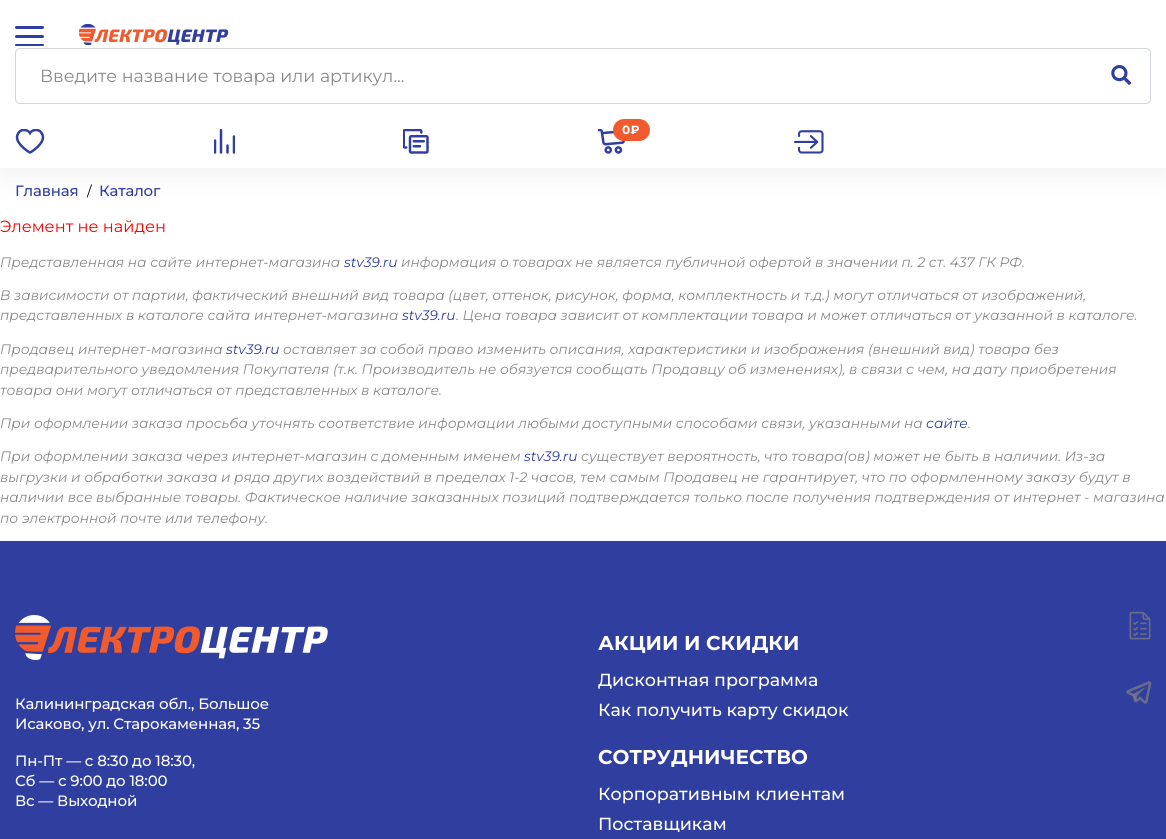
import math
import cairocffi as cairo

surface = cairo.ImageSurface(cairo.FORMAT_RGB24, 1166, 839)
ctx = cairo.Context(surface)
options = cairo.FontOptions()
options.set_hint_metrics(cairo.HINT_METRICS_OFF)
options.set_hint_style(cairo.HINT_STYLE_NONE)
ctx.set_font_options(options)
ctx.set_miter_limit(4)


def rgb(r, g, b):
    ctx.set_source_rgb(r / 255, g / 255, b / 255)


def face(family, size, italic, bold):
    ctx.select_font_face(family, cairo.FONT_SLANT_ITALIC if italic else cairo.FONT_SLANT_NORMAL, cairo.FONT_WEIGHT_BOLD if bold else cairo.FONT_WEIGHT_NORMAL)
    ctx.set_font_size(size)


def label(x, y, s):
    ctx.move_to(x, y)
    ctx.show_text(s)


def tracked(x, y, s, letter, word):
    ctx.move_to(x, y)
    for ch in s:
        ctx.show_text(ch)
        ctx.rel_move_to(letter + word * (ch == ' '), 0)


def rect(x, y, w, h):
    ctx.rectangle(x, y, w, h)
    ctx.fill()


def rrect(x, y, w, h, r):
    ctx.new_sub_path()
    for i, (u, v) in enumerate([(x + w - r, y + h - r), (x + r, y + h - r), (x + r, y + r), (x + w - r, y + r)]):
        ctx.arc(u, v, r, i * math.pi / 2, (i + 1) * math.pi / 2)
    ctx.close_path()


def soft_shadow(x, y, w, h, r, blur, alpha):
    ctx.push_group_with_content(cairo.CONTENT_ALPHA)
    ctx.set_operator(cairo.OPERATOR_SOURCE)
    for i in range(15, -16, -2):
        e = blur * i / 6
        if min(w, h) + 2 * e > 0:
            ctx.set_source_rgba(0, 0, 0, alpha * math.erfc((i - 1) / 8.5) / 2)
            rrect(x - e, y - e, w + 2 * e, h + 2 * e, max(0, min(r + e + blur * .6, min(w, h) / 2 + e)))
            ctx.fill()
    ctx.mask(ctx.pop_group())


def image(path, x, y, w, h):
    ctx.save()
    ctx.set_source_surface(cairo.ImageSurface.create_from_png(path), x, y)
    ctx.rectangle(x, y, w, h)
    ctx.fill()
    ctx.restore()


rgb(255, 255, 255)
ctx.paint()
rgb(0, 0, 0)
soft_shadow(0, 8, 1166, 167, 0, 15, 0.06)
rgb(255, 255, 255)
rect(0, 0, 1166, 168)
rgb(48, 63, 159)
rrect(15, 26, 29, 3, 1.5)
ctx.fill()
rrect(15, 35, 29, 3, 1.5)
ctx.fill()
rrect(15, 44, 29, 2, 1)
ctx.fill()
image('image0.png', 79, 24, 150, 21)
rrect(15.5, 48.5, 1135, 55, 4.5)
rgb(209, 213, 219)
ctx.set_line_width(1)
ctx.stroke()
face('Montserrat', 17.5, 0, 0)
rgb(138, 138, 138)
label(40, 82, 'Введите название товара или артикул...')
image('image1.png', 1111, 65, 20, 20)
image('image2.png', 15, 129, 30, 25)
ctx.save()
ctx.rectangle(214, 129, 21, 25)
ctx.clip()
ctx.new_path()
ctx.move_to(215, 140.5)
ctx.line_to(215, 152.5)
ctx.move_to(221, 130)
ctx.line_to(221, 152.5)
ctx.move_to(227.5, 145.5)
ctx.line_to(227.5, 152.5)
ctx.move_to(234, 136.5)
ctx.line_to(234, 152.5)
rgb(48, 63, 159)
ctx.set_line_width(2.5)
ctx.set_line_cap(cairo.LINE_CAP_ROUND)
ctx.set_line_join(cairo.LINE_JOIN_ROUND)
ctx.stroke()
ctx.restore()
image('image3.png', 403, 129, 26, 25)
image('image4.png', 598, 129, 27, 25)
rgb(241, 90, 44)
rrect(613, 119, 37, 22, 11)
ctx.fill()
face('Montserrat', 12, 0, 1)
rgb(255, 255, 255)
label(622, 134, '0₽')
image('image5.png', 794, 130, 30, 24)
face('Montserrat Medium', 15, 0, 0)
rgb(48, 63, 159)
tracked(15, 196, 'Главная', -0.15, 0)
face('Montserrat', 13.75, 0, 0)
rgb(0, 0, 0)
label(87, 196, '/')
face('Montserrat Medium', 15, 0, 0)
rgb(48, 63, 159)
tracked(99, 196, 'Каталог', -0.15, 0)
face('Montserrat', 16.25, 0, 0)
rgb(255, 0, 0)
label(0, 232, 'Элемент не найден')
face('Montserrat', 13.75, 1, 0)
rgb(138, 138, 138)
label(0, 267, 'Представленная на сайте интернет-магазина')
rgb(48, 63, 159)
label(344, 267, 'stv39.ru')
rgb(138, 138, 138)
label(401, 267, 'информация о товарах не является публичной офертой в значении п. 2 ст. 437 ГК РФ.')
label(0, 300, 'В зависимости от партии, фактический внешний вид товара (цвет, оттенок, рисунок, форма, комплектность и т.д.) могут отличаться от изображений,')
label(0, 320, 'представленных в каталоге сайта интернет-магазина')
rgb(48, 63, 159)
label(402, 320, 'stv39.ru')
rgb(138, 138, 138)
label(456, 320, '. Цена товара зависит от комплектации товара и может отличаться от указанной в каталоге.')
label(0, 354, 'Продавец интернет-магазина')
rgb(48, 63, 159)
label(226, 354, 'stv39.ru')
rgb(138, 138, 138)
label(283, 354, 'оставляет за собой право изменить описания, характеристики и изображения (внешний вид) товара без')
label(0, 374, 'предварительного уведомления Покупателя (т.к. Производитель не обязуется сообщать Продавцу об изменениях), в связи с чем, на дату приобретения')
label(0, 395, 'товара они могут отличаться от представленных в каталоге.')
label(0, 428, 'При оформлении заказа просьба уточнять соответствие информации любыми доступными способами связи, указанными на')
rgb(48, 63, 159)
label(926, 428, 'сайте')
rgb(138, 138, 138)
label(968, 428, '.')
label(0, 461, 'При оформлении заказа через интернет-магазин с доменным именем')
rgb(48, 63, 159)
label(524, 461, 'stv39.ru')
rgb(138, 138, 138)
label(581, 461, 'существует вероятность, что товара(ов) может не быть в наличии. Из-за')
label(0, 482, 'выгрузки и обработки заказа и ряда других воздействий в пределах 1-2 часов, тем самым Продавец не гарантирует, что по оформленному заказу будут в')
label(0, 502, 'наличии все выбранные товары. Фактическое наличие заказанных позиций подтверждается только после получения подтверждения от интернет - магазина')
label(0, 523, 'по электронной почте или телефону.')
rgb(48, 63, 159)
rect(0, 541, 1166, 298)
image('image6.png', 1129, 611, 22, 29)
image('image7.png', 15, 615, 313, 45)
face('Montserrat Medium', 15, 0, 0)
rgb(255, 255, 255)
tracked(15, 709, 'Калининградская обл., Большое', -0.15, 0)
tracked(15, 729, 'Исаково, ул. Старокаменная, 35', -0.15, 0)
tracked(15, 766, 'Пн-Пт — с 8:30 до 18:30,', -0.15, 0)
tracked(15, 786, 'Сб — с 9:00 до 18:00', -0.15, 0)
tracked(15, 806, 'Вс — Выходной', -0.15, 0)
face('Montserrat', 20, 0, 1)
label(598, 650, 'АКЦИИ И СКИДКИ')
face('Montserrat Medium', 17.5, 0, 0)
label(598, 686, 'Дисконтная программа')
label(598, 716, 'Как получить карту скидок')
face('Montserrat', 20, 0, 1)
label(598, 764, 'СОТРУДНИЧЕСТВО')
face('Montserrat Medium', 17.5, 0, 0)
label(598, 800, 'Корпоративным клиентам')
label(598, 830, 'Поставщикам')
image('image8.png', 1126, 681, 26, 23)
surface.write_to_png('render.png')
